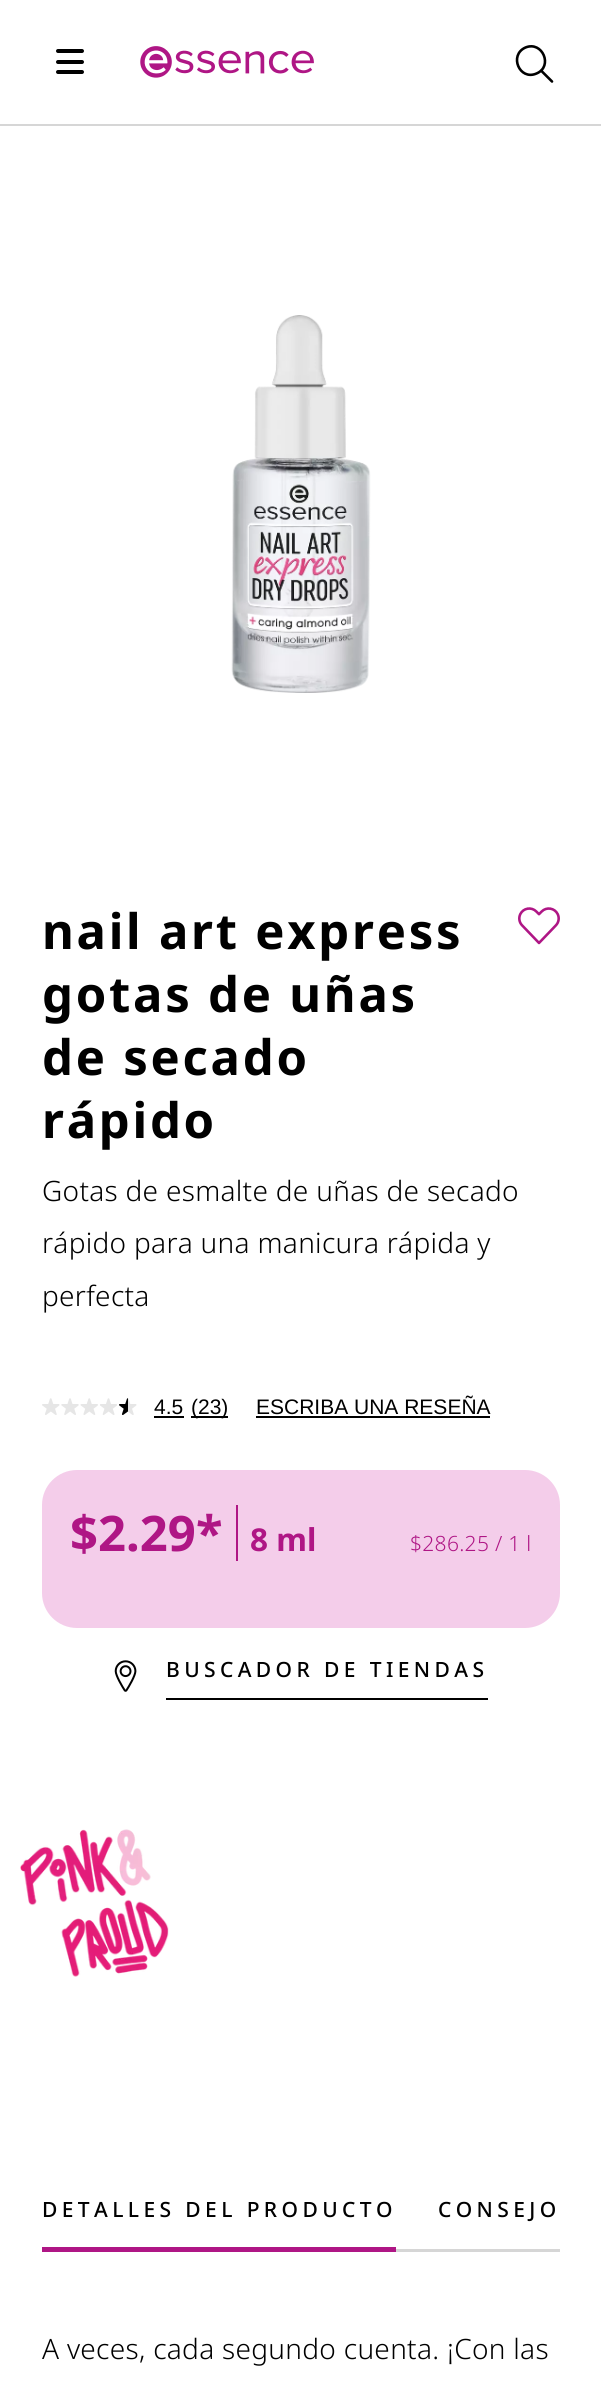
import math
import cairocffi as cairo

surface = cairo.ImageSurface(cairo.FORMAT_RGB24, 601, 2385)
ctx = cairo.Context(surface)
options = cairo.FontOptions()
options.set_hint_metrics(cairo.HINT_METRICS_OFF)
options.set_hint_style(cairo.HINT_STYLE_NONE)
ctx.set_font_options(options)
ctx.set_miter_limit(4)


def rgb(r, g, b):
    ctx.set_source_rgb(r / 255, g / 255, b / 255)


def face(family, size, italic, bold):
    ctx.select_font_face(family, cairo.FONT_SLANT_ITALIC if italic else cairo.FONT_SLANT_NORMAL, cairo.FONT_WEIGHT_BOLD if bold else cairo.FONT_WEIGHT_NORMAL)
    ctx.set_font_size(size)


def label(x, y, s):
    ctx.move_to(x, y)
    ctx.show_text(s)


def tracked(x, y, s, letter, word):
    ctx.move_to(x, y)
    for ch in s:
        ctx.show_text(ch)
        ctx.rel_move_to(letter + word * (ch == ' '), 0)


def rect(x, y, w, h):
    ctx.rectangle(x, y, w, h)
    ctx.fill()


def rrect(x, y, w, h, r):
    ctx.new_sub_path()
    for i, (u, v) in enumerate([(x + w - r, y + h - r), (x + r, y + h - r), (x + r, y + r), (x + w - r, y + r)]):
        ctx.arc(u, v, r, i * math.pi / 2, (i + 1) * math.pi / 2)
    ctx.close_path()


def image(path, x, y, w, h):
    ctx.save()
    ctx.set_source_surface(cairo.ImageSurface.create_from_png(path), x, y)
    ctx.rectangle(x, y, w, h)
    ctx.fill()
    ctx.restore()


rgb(255, 255, 255)
ctx.paint()
rgb(214, 214, 214)
rect(0, 124, 601, 2)
rgb(0, 0, 0)
rrect(56, 49, 28, 4, 2)
ctx.fill()
rrect(56, 60, 28, 4, 2)
ctx.fill()
rrect(56, 70, 28, 4, 2)
ctx.fill()
image('image0.png', 140, 46, 174, 32)
ctx.new_path()
ctx.move_to(536.5, 73.5)
ctx.curve_to(553.5, 66.5, 542.5, 40.5, 525.5, 47.5)
ctx.curve_to(508.5, 55, 519.5, 81, 536.5, 73.5)
ctx.close_path()
ctx.move_to(541, 70.5)
ctx.line_to(552, 81.5)
ctx.set_line_width(2.6)
ctx.set_line_cap(cairo.LINE_CAP_ROUND)
ctx.set_line_join(cairo.LINE_JOIN_ROUND)
ctx.stroke()
image('image1.png', 231, 315, 140, 378)
face('Noto Sans', 49, 0, 1)
tracked(42, 949, 'nail art express', 2.75, 0)
tracked(42, 1012, 'gotas de uñas', 2.75, 0)
tracked(42, 1075, 'de secado', 2.75, 0)
tracked(42, 1138, 'rápido', 2.75, 0)
image('image2.png', 518, 907, 42, 38)
face('Noto Sans Light', 28, 0, 0)
tracked(42, 1201, 'Gotas de esmalte de uñas de secado', 0.3, 0)
tracked(42, 1253, 'rápido para una manicura rápida y', 0.3, 0)
tracked(42, 1306, 'perfecta', 0.3, 0)
image('image3.png', 42, 1398, 18, 17)
image('image4.png', 61, 1398, 18, 17)
image('image5.png', 80, 1398, 18, 17)
image('image6.png', 100, 1398, 17, 17)
image('image7.png', 119, 1398, 18, 17)
face('Liberation Sans', 21, 0, 0)
label(154, 1414, '4.5')
rect(154, 1416, 30, 2)
rect(191, 1416, 37, 2)
label(191, 1414, '(23)')
label(256, 1414, 'ESCRIBA UNA RESEÑA')
rect(256, 1416, 234, 2)
rgb(244, 205, 234)
rrect(42, 1470, 518, 158, 35)
ctx.fill()
face('Noto Sans', 49, 0, 1)
rgb(175, 22, 133)
label(70, 1551, '$2.29*')
rect(236, 1505, 2, 56)
face('Noto Sans', 31.5, 0, 1)
label(250, 1551, '8 ml')
face('Noto Sans Light', 21, 0, 0)
tracked(410, 1551, '$286.25 / 1 l', 0.3, 0)
image('image8.png', 114, 1660, 23, 32)
rgb(0, 0, 0)
rect(166, 1698, 322, 2)
face('Noto Sans Medium', 21, 0, 0)
tracked(166, 1677, 'BUSCADOR DE TIENDAS', 4.4, 0)
image('image9.png', 20, 1829, 149, 148)
tracked(42, 2217, 'DETALLES DEL PRODUCTO', 4.4, 0)
rgb(175, 22, 133)
rect(42, 2247, 354, 5)
rgb(214, 214, 214)
rect(396, 2249, 164, 3)
rgb(0, 0, 0)
tracked(438, 2217, 'CONSEJO', 4.4, 0)
face('Noto Sans Light', 28, 0, 0)
tracked(42, 2359, 'A veces, cada segundo cuenta. ¡Con las', 0.3, 0)
surface.write_to_png('render.png')
